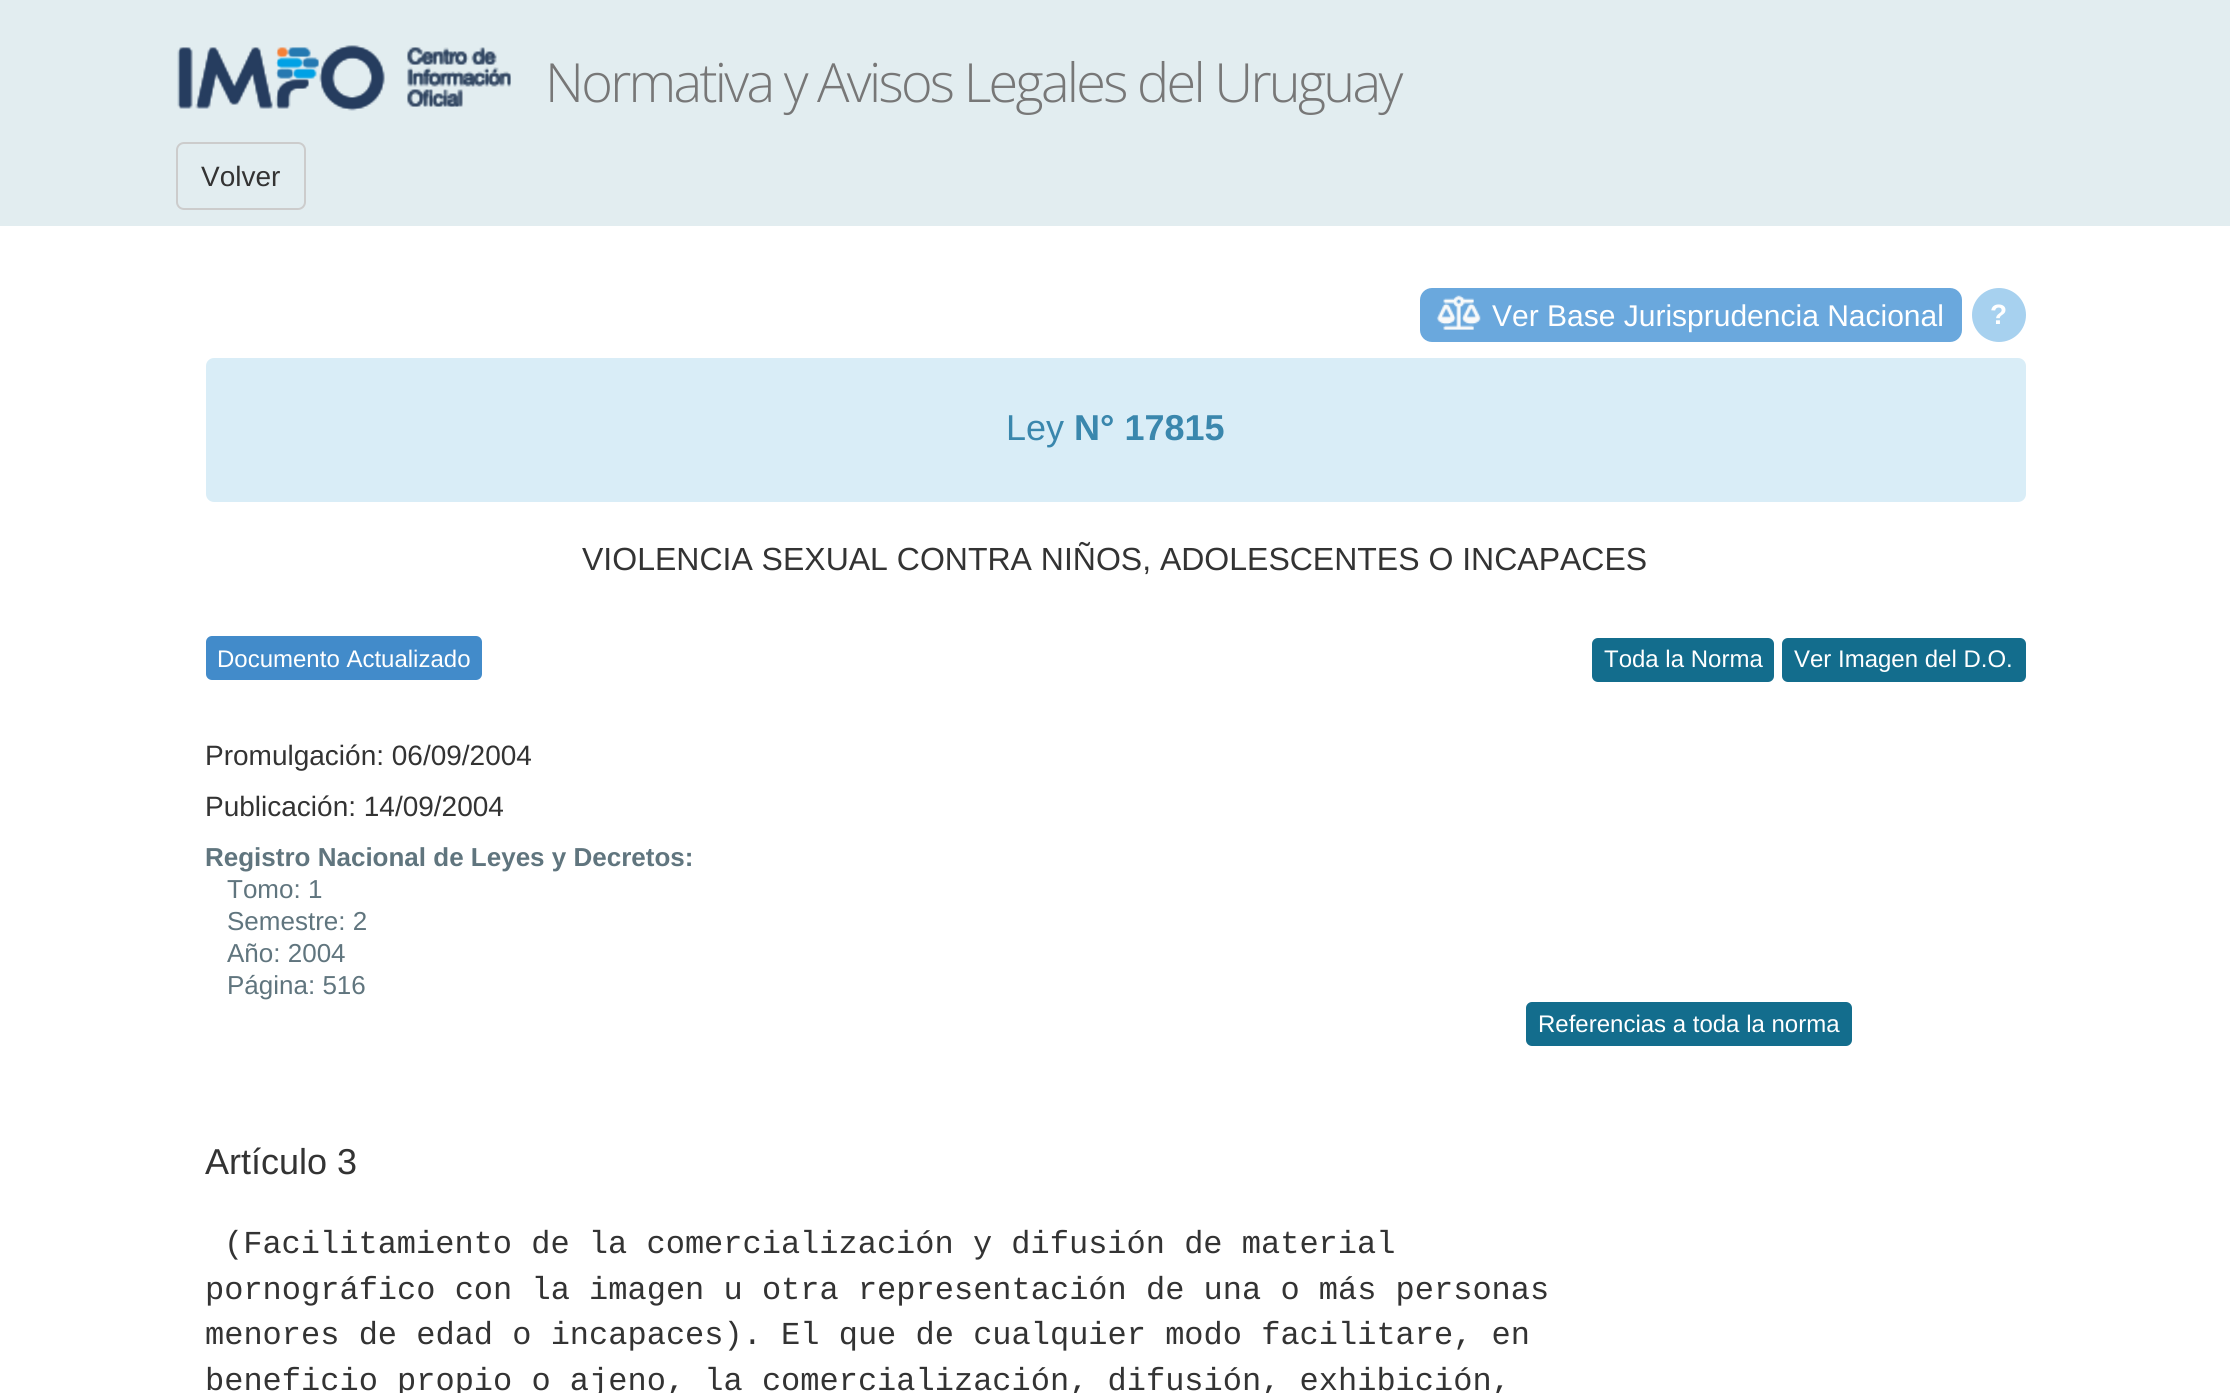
import math
import cairocffi as cairo

surface = cairo.ImageSurface(cairo.FORMAT_RGB24, 2230, 1393)
ctx = cairo.Context(surface)
options = cairo.FontOptions()
options.set_hint_metrics(cairo.HINT_METRICS_OFF)
options.set_hint_style(cairo.HINT_STYLE_NONE)
ctx.set_font_options(options)
ctx.set_miter_limit(4)


def rgb(r, g, b):
    ctx.set_source_rgb(r / 255, g / 255, b / 255)


def face(family, size, italic, bold):
    ctx.select_font_face(family, cairo.FONT_SLANT_ITALIC if italic else cairo.FONT_SLANT_NORMAL, cairo.FONT_WEIGHT_BOLD if bold else cairo.FONT_WEIGHT_NORMAL)
    ctx.set_font_size(size)


def label(x, y, s):
    ctx.move_to(x, y)
    ctx.show_text(s)


def tracked(x, y, s, letter, word):
    ctx.move_to(x, y)
    for ch in s:
        ctx.show_text(ch)
        ctx.rel_move_to(letter + word * (ch == ' '), 0)


def rect(x, y, w, h):
    ctx.rectangle(x, y, w, h)
    ctx.fill()


def rrect(x, y, w, h, r):
    ctx.new_sub_path()
    for i, (u, v) in enumerate([(x + w - r, y + h - r), (x + r, y + h - r), (x + r, y + r), (x + w - r, y + r)]):
        ctx.arc(u, v, r, i * math.pi / 2, (i + 1) * math.pi / 2)
    ctx.close_path()


def image(path, x, y, w, h):
    ctx.save()
    ctx.set_source_surface(cairo.ImageSurface.create_from_png(path), x, y)
    ctx.rectangle(x, y, w, h)
    ctx.fill()
    ctx.restore()


rgb(255, 255, 255)
ctx.paint()
rgb(226, 237, 240)
rect(0, 0, 2230, 226)
image('image0.png', 177, 45, 334, 66)
image('image1.png', 177, 45, 334, 66)
face('Open Sans Light', 54, 0, 0)
rgb(119, 119, 119)
tracked(545, 102, 'Normativa y Avisos Legales del Uruguay', -2.7, 0)
rrect(177, 143, 128, 66, 7)
rgb(204, 204, 204)
ctx.stroke()
face('Liberation Sans', 28, 0, 0)
rgb(51, 51, 51)
label(201, 186, 'Volver')
rgb(106, 168, 221)
rrect(1420, 288, 542, 54, 12)
ctx.fill()
image('image2.png', 1436, 295, 45, 35)
face('Liberation Sans', 30, 0, 0)
rgb(255, 255, 255)
label(1492, 326, 'Ver Base Jurisprudencia Nacional')
rgb(167, 209, 239)
ctx.new_path()
ctx.arc(1999, 315, 27, 0, 2 * math.pi)
ctx.fill()
face('Liberation Sans', 28, 0, 1)
rgb(255, 255, 255)
label(1990, 324, '?')
rgb(217, 237, 247)
rrect(206, 358, 1820, 144, 8)
ctx.fill()
face('Liberation Sans', 36, 0, 0)
rgb(58, 135, 173)
label(1006, 440, 'Ley')
face('Liberation Sans', 36, 0, 1)
label(1074, 440, 'N° 17815')
face('Liberation Sans', 32, 0, 0)
rgb(51, 51, 51)
label(582, 570, 'VIOLENCIA SEXUAL CONTRA NIÑOS, ADOLESCENTES O INCAPACES')
rgb(66, 139, 202)
rrect(206, 636, 276, 44, 6)
ctx.fill()
face('Liberation Sans', 24, 0, 0)
rgb(255, 255, 255)
label(217, 667, 'Documento Actualizado')
rgb(19, 109, 141)
rrect(1593, 639, 180, 42, 5)
ctx.fill_preserve()
ctx.stroke()
rgb(255, 255, 255)
label(1604, 667, 'Toda la Norma')
rgb(19, 109, 141)
rrect(1783, 639, 242, 42, 5)
ctx.fill_preserve()
ctx.stroke()
rgb(255, 255, 255)
label(1794, 667, 'Ver Imagen del D.O.')
face('Liberation Sans', 28, 0, 0)
rgb(51, 51, 51)
label(205, 765, 'Promulgación: 06/09/2004')
label(205, 816, 'Publicación: 14/09/2004')
face('Liberation Sans', 26, 0, 1)
rgb(96, 117, 126)
label(205, 866, 'Registro Nacional de Leyes y Decretos:')
face('Liberation Sans', 26, 0, 0)
label(227, 898, 'Tomo: 1')
label(227, 930, 'Semestre: 2')
label(227, 962, 'Año: 2004')
label(227, 994, 'Página: 516')
rgb(19, 109, 141)
rrect(1527, 1003, 324, 42, 5)
ctx.fill_preserve()
ctx.stroke()
face('Liberation Sans', 24, 0, 0)
rgb(255, 255, 255)
label(1538, 1032, 'Referencias a toda la norma')
face('Liberation Sans', 36, 0, 0)
rgb(51, 51, 51)
label(205, 1174, 'Artículo 3')
face('Liberation Mono', 32, 0, 0)
label(224, 1253, '(Facilitamiento de la comercialización y difusión de material')
label(205, 1299, 'pornográfico con la imagen u otra representación de una o más personas')
label(205, 1344, 'menores de edad o incapaces). El que de cualquier modo facilitare, en')
label(205, 1390, 'beneficio propio o ajeno, la comercialización, difusión, exhibición,')
surface.write_to_png('render.png')
